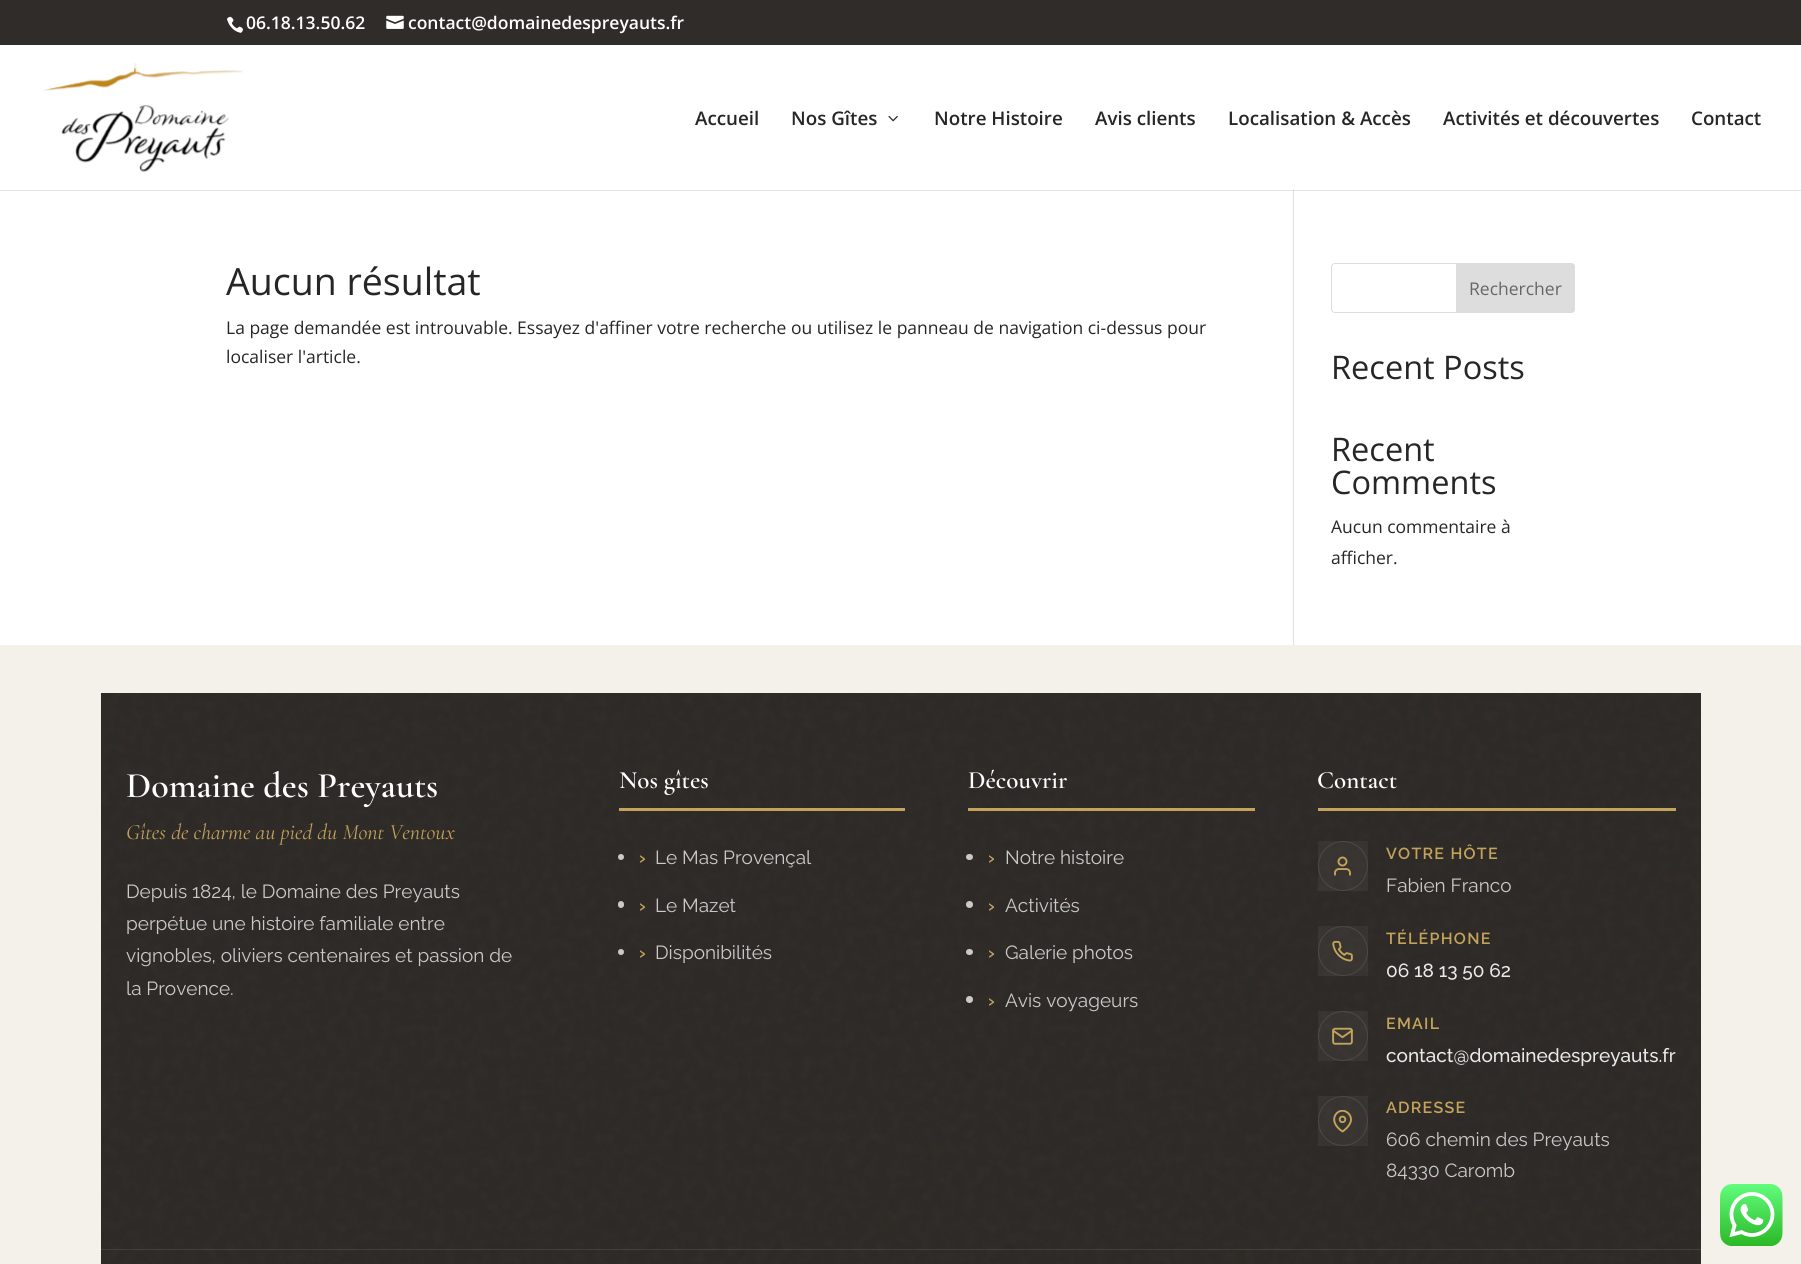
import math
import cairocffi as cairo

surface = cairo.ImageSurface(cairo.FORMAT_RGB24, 1801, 1264)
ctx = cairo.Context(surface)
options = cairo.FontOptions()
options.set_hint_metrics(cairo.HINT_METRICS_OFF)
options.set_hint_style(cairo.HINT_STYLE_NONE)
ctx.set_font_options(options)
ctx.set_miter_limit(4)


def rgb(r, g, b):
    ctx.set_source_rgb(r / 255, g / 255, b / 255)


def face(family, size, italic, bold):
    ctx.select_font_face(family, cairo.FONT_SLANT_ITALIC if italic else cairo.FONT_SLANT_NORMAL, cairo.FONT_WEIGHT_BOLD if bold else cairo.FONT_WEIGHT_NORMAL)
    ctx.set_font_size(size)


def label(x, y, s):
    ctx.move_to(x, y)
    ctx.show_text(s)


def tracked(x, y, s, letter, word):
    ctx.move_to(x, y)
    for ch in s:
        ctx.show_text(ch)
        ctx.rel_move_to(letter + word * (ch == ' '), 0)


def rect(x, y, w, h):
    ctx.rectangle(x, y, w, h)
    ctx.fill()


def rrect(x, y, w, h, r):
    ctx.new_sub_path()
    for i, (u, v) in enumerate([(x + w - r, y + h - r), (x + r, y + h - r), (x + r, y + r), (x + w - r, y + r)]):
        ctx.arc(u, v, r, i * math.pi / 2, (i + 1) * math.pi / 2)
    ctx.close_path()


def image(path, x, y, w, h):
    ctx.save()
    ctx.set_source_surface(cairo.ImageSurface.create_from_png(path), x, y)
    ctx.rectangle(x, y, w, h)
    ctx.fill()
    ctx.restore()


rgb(255, 255, 255)
ctx.paint()
rgb(230, 230, 230)
rect(0, 190, 1801, 1)
rgb(48, 44, 41)
rect(0, 0, 1801, 45)
image('image0.png', 227, 16, 16, 17)
face('Open Sans SemiBold', 17.5, 0, 0)
rgb(255, 255, 255)
label(246, 29, '06.18.13.50.62')
image('image1.png', 386, 15, 18, 14)
label(408, 29, 'contact@domainedespreyauts.fr')
image('image2.png', 43, 63, 200, 110)
face('Open Sans SemiBold', 18.75, 0, 0)
rgb(38, 38, 38)
label(695, 125, 'Accueil')
label(791, 125, 'Nos Gîtes')
image('image3.png', 888, 116, 10, 6)
label(934, 125, 'Notre Histoire')
label(1095, 125, 'Avis clients')
label(1228, 125, 'Localisation & Accès')
label(1443, 125, 'Activités et découvertes')
label(1691, 125, 'Contact')
rgb(226, 226, 226)
rect(1293, 190, 1, 455)
rgb(203, 203, 203)
rect(1293, 190, 1, 1)
face('Open Sans', 37.5, 0, 0)
rgb(38, 38, 38)
label(226, 295, 'Aucun résultat')
face('Open Sans', 17.5, 0, 0)
label(226, 334, 'La page demandée est introuvable. Essayez d\'affiner votre recherche ou utilisez le panneau de navigation ci-dessus pour')
label(226, 363, 'localiser l\'article.')
rrect(1331.5, 263.5, 243, 49, 3.5)
rgb(221, 221, 221)
ctx.set_line_width(1)
ctx.stroke()
ctx.new_path()
ctx.move_to(1456.5, 263.5)
ctx.line_to(1571, 263.5)
ctx.curve_to(1573, 263.5, 1574.5, 265, 1574.5, 267)
ctx.line_to(1574.5, 309)
ctx.curve_to(1574.5, 311, 1573, 312.5, 1571, 312.5)
ctx.line_to(1456.5, 312.5)
ctx.close_path()
ctx.fill_preserve()
ctx.stroke()
rgb(102, 102, 102)
label(1469, 295, 'Rechercher')
face('Open Sans', 32.5, 0, 0)
rgb(38, 38, 38)
label(1331, 379, 'Recent Posts')
label(1331, 461, 'Recent')
label(1331, 494, 'Comments')
face('Open Sans', 17.5, 0, 0)
label(1331, 533, 'Aucun commentaire à')
label(1331, 564, 'afficher.')
rgb(244, 240, 234)
rect(0, 645, 1801, 619)
rgb(44, 40, 37)
rect(101, 693, 1600, 571)
image('image4.png', 102, 693, 1599, 571)
face('Cormorant Garamond SemiBold', 36, 0, 0)
rgb(255, 255, 255)
label(126, 797, 'Domaine des Preyauts')
face('Cormorant Garamond', 22, 1, 0)
rgb(196, 163, 90)
label(126, 839, 'Gîtes de charme au pied du Mont Ventoux')
face('Raleway', 19, 0, 0)
rgb(203, 202, 201)
label(126, 898, 'Depuis 1824, le Domaine des Preyauts')
label(126, 930, 'perpétue une histoire familiale entre')
label(126, 962, 'vignobles, oliviers centenaires et passion de')
label(126, 995, 'la Provence.')
rgb(196, 163, 90)
rect(619, 808, 286, 3)
face('Cormorant Garamond SemiBold', 25, 0, 0)
rgb(255, 255, 255)
label(619, 788, 'Nos gîtes')
ctx.set_source_rgba(1, 1, 1, 0.75)
ctx.new_path()
ctx.arc(621, 857, 3, 0, 2 * math.pi)
ctx.fill()
face('Raleway SemiBold', 19, 0, 0)
rgb(196, 163, 90)
label(639, 864, '›')
face('Raleway', 19, 0, 0)
rgb(203, 202, 201)
label(655, 864, 'Le Mas Provençal')
ctx.set_source_rgba(1, 1, 1, 0.75)
rrect(618, 901, 6, 7, 3)
ctx.fill()
face('Raleway SemiBold', 19, 0, 0)
rgb(196, 163, 90)
label(639, 912, '›')
face('Raleway', 19, 0, 0)
rgb(203, 202, 201)
label(655, 912, 'Le Mazet')
ctx.new_path()
ctx.arc(621, 952, 3, 0, 2 * math.pi)
ctx.fill()
face('Raleway SemiBold', 19, 0, 0)
rgb(196, 163, 90)
label(639, 959, '›')
face('Raleway', 19, 0, 0)
rgb(203, 202, 201)
label(655, 959, 'Disponibilités')
rgb(196, 163, 90)
rect(968, 808, 287, 3)
face('Cormorant Garamond SemiBold', 25, 0, 0)
rgb(255, 255, 255)
label(968, 788, 'Découvrir')
ctx.set_source_rgba(1, 1, 1, 0.75)
rrect(966, 854, 7, 6, 3)
ctx.fill()
face('Raleway SemiBold', 19, 0, 0)
rgb(196, 163, 90)
label(988, 864, '›')
face('Raleway', 19, 0, 0)
rgb(203, 202, 201)
label(1005, 864, 'Notre histoire')
ctx.set_source_rgba(1, 1, 1, 0.75)
ctx.new_path()
ctx.arc(969.5, 904.5, 3.5, 0, 2 * math.pi)
ctx.fill()
face('Raleway SemiBold', 19, 0, 0)
rgb(196, 163, 90)
label(988, 912, '›')
face('Raleway', 19, 0, 0)
rgb(203, 202, 201)
label(1005, 912, 'Activités')
ctx.set_source_rgba(1, 1, 1, 0.75)
rrect(966, 949, 7, 6, 3)
ctx.fill()
face('Raleway SemiBold', 19, 0, 0)
rgb(196, 163, 90)
label(988, 959, '›')
face('Raleway', 19, 0, 0)
rgb(203, 202, 201)
label(1005, 959, 'Galerie photos')
ctx.new_path()
ctx.arc(969.5, 999.5, 3.5, 0, 2 * math.pi)
ctx.fill()
face('Raleway SemiBold', 19, 0, 0)
rgb(196, 163, 90)
label(988, 1007, '›')
face('Raleway', 19, 0, 0)
rgb(203, 202, 201)
label(1005, 1007, 'Avis voyageurs')
rgb(196, 163, 90)
rect(1318, 808, 358, 3)
face('Cormorant Garamond SemiBold', 25, 0, 0)
rgb(255, 255, 255)
label(1317, 788, 'Contact')
ctx.set_source_rgba(1, 1, 1, 0.05)
rect(1318, 841, 50, 50)
ctx.new_path()
ctx.arc(1343, 866, 24.5, 0, 2 * math.pi)
ctx.set_source_rgba(1, 1, 1, 0.1)
ctx.stroke()
image('image5.png', 1334, 856, 17, 20)
face('Raleway SemiBold', 16, 0, 0)
rgb(196, 163, 90)
tracked(1386, 859, 'VOTRE HÔTE', 1.25, 0)
face('Raleway', 19, 0, 0)
rgb(203, 202, 201)
label(1386, 892, 'Fabien Franco')
ctx.set_source_rgba(1, 1, 1, 0.05)
rect(1318, 926, 50, 50)
ctx.new_path()
ctx.arc(1343, 951, 24.5, 0, 2 * math.pi)
ctx.set_source_rgba(1, 1, 1, 0.1)
ctx.stroke()
image('image6.png', 1332, 940, 21, 22)
face('Raleway SemiBold', 16, 0, 0)
rgb(196, 163, 90)
tracked(1386, 944, 'TÉLÉPHONE', 1.25, 0)
face('Raleway Medium', 19, 0, 0)
rgb(234, 234, 234)
label(1386, 977, '06 18 13 50 62')
ctx.set_source_rgba(1, 1, 1, 0.05)
rect(1318, 1011, 50, 50)
ctx.new_path()
ctx.arc(1343, 1036, 24.5, 0, 2 * math.pi)
ctx.set_source_rgba(1, 1, 1, 0.1)
ctx.stroke()
image('image7.png', 1332, 1027, 21, 18)
face('Raleway SemiBold', 16, 0, 0)
rgb(196, 163, 90)
tracked(1386, 1029, 'EMAIL', 1.25, 0)
face('Raleway Medium', 19, 0, 0)
rgb(234, 234, 234)
label(1386, 1062, 'contact@domainedespreyauts.fr')
ctx.set_source_rgba(1, 1, 1, 0.05)
rect(1318, 1096, 50, 50)
ctx.new_path()
ctx.arc(1343, 1121, 24.5, 0, 2 * math.pi)
ctx.set_source_rgba(1, 1, 1, 0.1)
ctx.stroke()
ctx.save()
ctx.rectangle(1331, 1110, 23, 23)
ctx.clip()
ctx.new_path()
ctx.move_to(1351, 1119.5)
ctx.curve_to(1351, 1126, 1342.5, 1131.5, 1342.5, 1131.5)
ctx.curve_to(1324.5, 1119.5, 1340, 1104.5, 1348.5, 1113.5)
ctx.curve_to(1350, 1115, 1351, 1117, 1351, 1119.5)
ctx.close_path()
rgb(196, 163, 90)
ctx.set_line_width(1.9)
ctx.set_line_cap(cairo.LINE_CAP_ROUND)
ctx.set_line_join(cairo.LINE_JOIN_ROUND)
ctx.stroke()
ctx.restore()
ctx.arc(1342.5, 1119.4, 2.8, 0, 2 * math.pi)
rgb(196, 163, 90)
ctx.set_line_width(1.9)
ctx.stroke()
face('Raleway SemiBold', 16, 0, 0)
tracked(1386, 1113, 'ADRESSE', 1.25, 0)
face('Raleway', 19, 0, 0)
rgb(203, 202, 201)
label(1386, 1146, '606 chemin des Preyauts')
label(1386, 1177, '84330 Caromb')
ctx.set_source_rgba(1, 1, 1, 0.1)
rect(101, 1249, 1600, 1)
image('image8.png', 1720, 1184, 63, 62)
surface.write_to_png('render.png')
